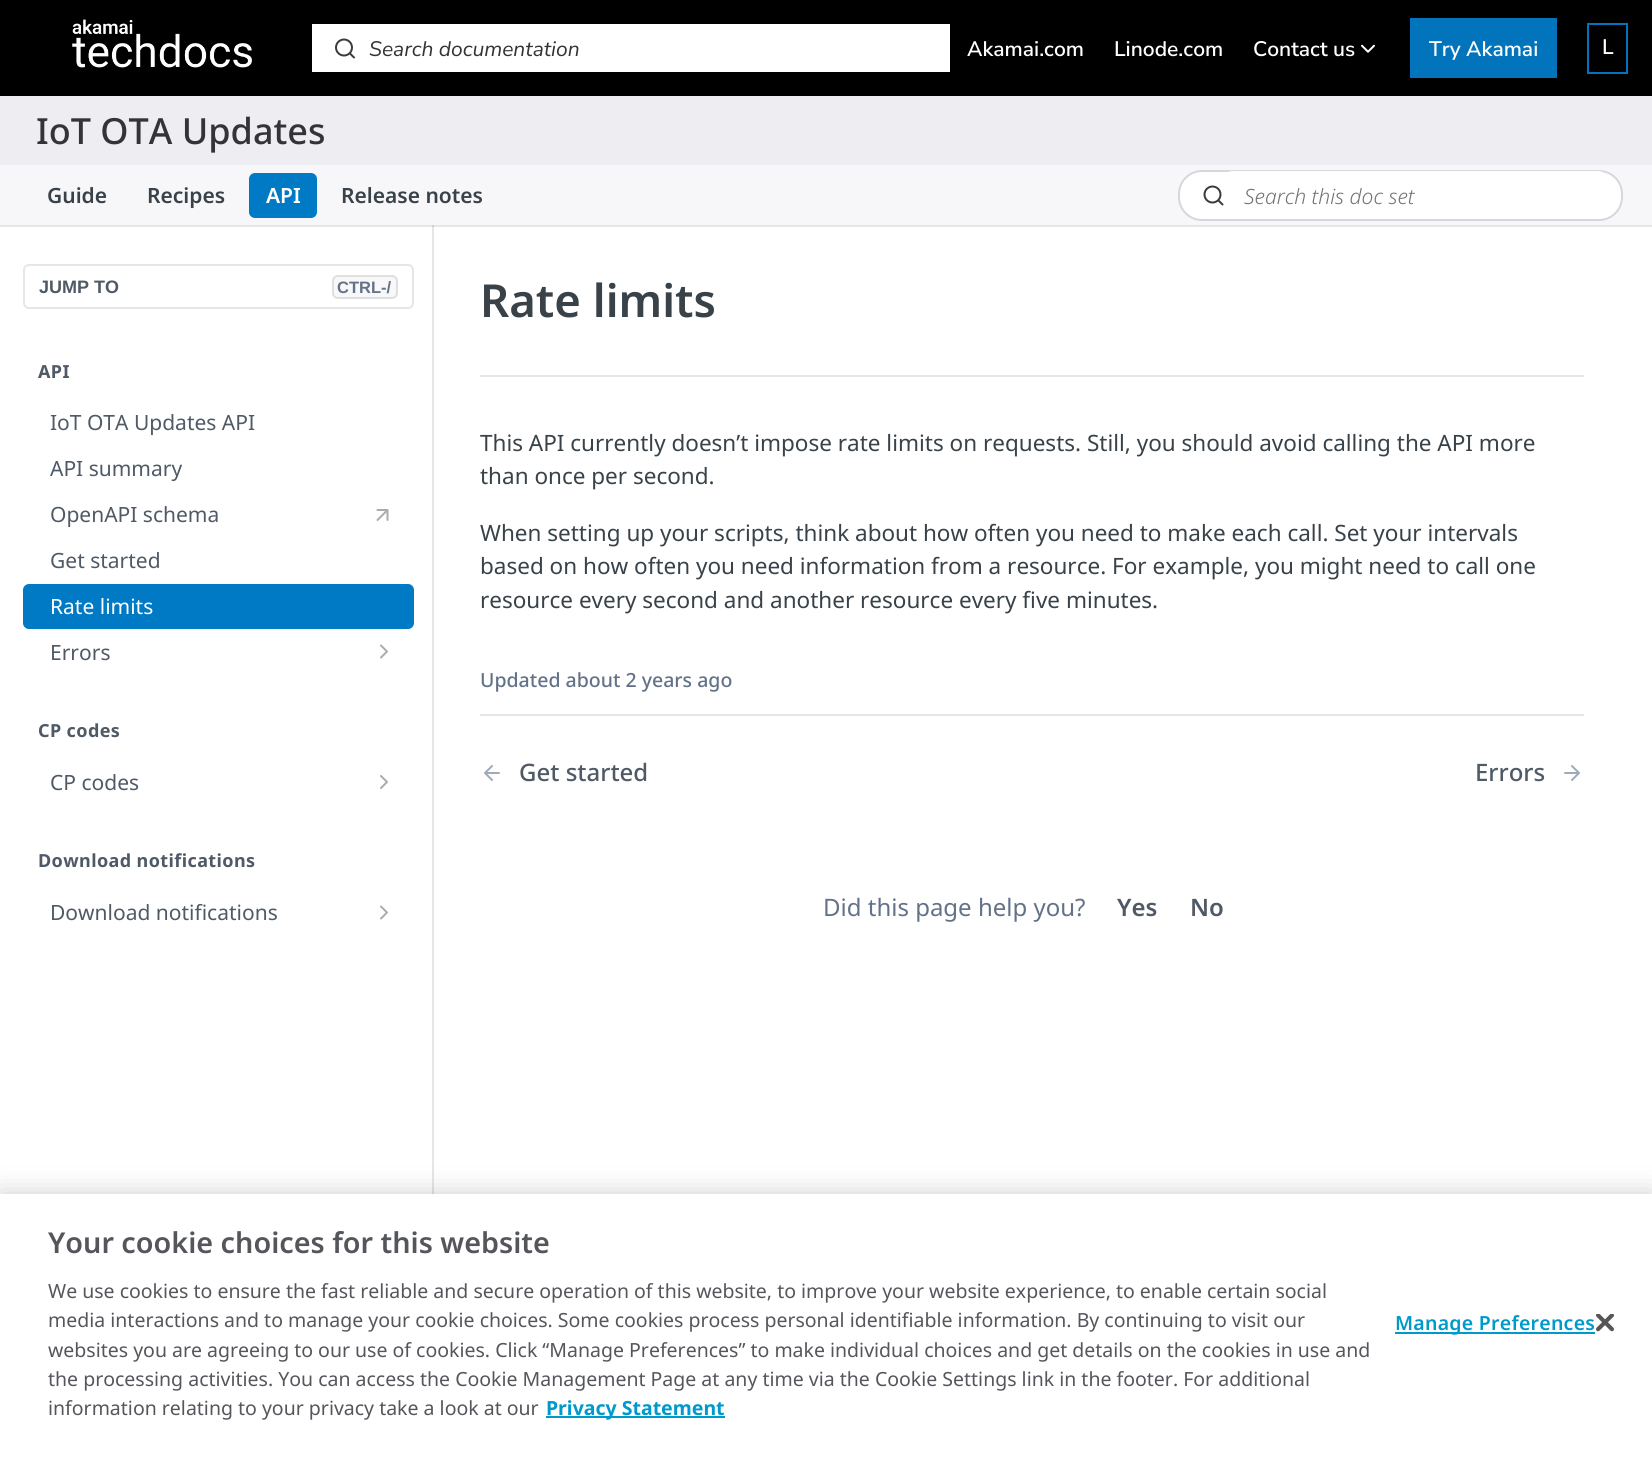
import math
import cairocffi as cairo

surface = cairo.ImageSurface(cairo.FORMAT_RGB24, 1652, 1457)
ctx = cairo.Context(surface)
options = cairo.FontOptions()
options.set_hint_metrics(cairo.HINT_METRICS_OFF)
options.set_hint_style(cairo.HINT_STYLE_NONE)
ctx.set_font_options(options)
ctx.set_miter_limit(4)


def rgb(r, g, b):
    ctx.set_source_rgb(r / 255, g / 255, b / 255)


def face(family, size, italic, bold):
    ctx.select_font_face(family, cairo.FONT_SLANT_ITALIC if italic else cairo.FONT_SLANT_NORMAL, cairo.FONT_WEIGHT_BOLD if bold else cairo.FONT_WEIGHT_NORMAL)
    ctx.set_font_size(size)


def label(x, y, s):
    ctx.move_to(x, y)
    ctx.show_text(s)


def tracked(x, y, s, letter, word):
    ctx.move_to(x, y)
    for ch in s:
        ctx.show_text(ch)
        ctx.rel_move_to(letter + word * (ch == ' '), 0)


def rect(x, y, w, h):
    ctx.rectangle(x, y, w, h)
    ctx.fill()


def rrect(x, y, w, h, r):
    ctx.new_sub_path()
    for i, (u, v) in enumerate([(x + w - r, y + h - r), (x + r, y + h - r), (x + r, y + r), (x + w - r, y + r)]):
        ctx.arc(u, v, r, i * math.pi / 2, (i + 1) * math.pi / 2)
    ctx.close_path()


def soft_shadow(x, y, w, h, r, blur, alpha):
    ctx.push_group_with_content(cairo.CONTENT_ALPHA)
    ctx.set_operator(cairo.OPERATOR_SOURCE)
    for i in range(15, -16, -2):
        e = blur * i / 6
        if min(w, h) + 2 * e > 0:
            ctx.set_source_rgba(0, 0, 0, alpha * math.erfc((i - 1) / 8.5) / 2)
            rrect(x - e, y - e, w + 2 * e, h + 2 * e, max(0, min(r + e + blur * .6, min(w, h) / 2 + e)))
            ctx.fill()
    ctx.mask(ctx.pop_group())


def image(path, x, y, w, h):
    ctx.save()
    ctx.set_source_surface(cairo.ImageSurface.create_from_png(path), x, y)
    ctx.rectangle(x, y, w, h)
    ctx.fill()
    ctx.restore()


rgb(255, 255, 255)
ctx.paint()
rgb(0, 0, 0)
rect(0, 0, 1652, 96)
image('image0.png', 72, 19, 180, 49)
rgb(255, 255, 255)
rect(312, 24, 638, 48)
image('image1.png', 335, 38, 20, 21)
face('Nunito Sans', 21, 1, 0)
rgb(52, 52, 56)
label(369, 56, 'Search documentation')
face('Nunito Sans SemiBold', 21, 0, 0)
rgb(255, 255, 255)
label(967, 56, 'Akamai.com')
label(1114, 56, 'Linode.com')
label(1253, 56, 'Contact us')
image('image2.png', 1361, 44, 14, 9)
rgb(1, 116, 188)
rect(1410, 18, 147, 60)
rgb(255, 255, 255)
label(1429, 56, 'Try Akamai')
ctx.rectangle(1588, 24, 39, 49)
rgb(1, 116, 188)
ctx.stroke()
rgb(255, 255, 255)
label(1602, 54, 'L')
ctx.set_source_rgba(0, 0, 0, 0.1)
rect(432, 225, 2, 969)
rect(0, 225, 1652, 2)
rgb(237, 237, 242)
rect(0, 96, 1652, 69)
face('Noto Sans Medium', 36, 0, 0)
rgb(52, 52, 56)
label(36, 144, 'IoT OTA Updates')
rgb(247, 247, 250)
rect(0, 165, 1652, 60)
face('Noto Sans SemiBold', 21, 0, 0)
rgb(56, 66, 72)
label(47, 203, 'Guide')
label(147, 203, 'Recipes')
rgb(1, 122, 198)
rrect(249, 173, 68, 45, 6)
ctx.fill()
rgb(255, 255, 255)
label(266, 203, 'API')
rgb(56, 66, 72)
label(341, 203, 'Release notes')
rgb(255, 255, 255)
rrect(1179, 171, 443, 49, 23)
ctx.fill_preserve()
rgb(214, 214, 221)
ctx.stroke()
image('image3.png', 1203, 185, 21, 21)
rgb(255, 255, 255)
rrect(1226, 171, 379, 48, 6)
ctx.fill()
face('Noto Sans Light', 21, 1, 0)
rgb(115, 115, 115)
label(1244, 204, 'Search this doc set')
rrect(24, 265, 389, 43, 5)
rgb(230, 230, 230)
ctx.stroke()
face('Liberation Sans', 18, 0, 1)
rgb(79, 90, 102)
label(39, 293, 'JUMP TO')
rgb(248, 248, 248)
rrect(333, 276, 64, 22, 5)
ctx.fill_preserve()
rgb(223, 223, 223)
ctx.stroke()
face('Liberation Sans', 16.5, 0, 1)
rgb(99, 114, 136)
label(337, 293, 'CTRL-/')
face('Noto Sans', 18, 0, 1)
rgb(79, 90, 102)
tracked(38, 378, 'API', 0.4, 0)
face('Noto Sans', 21, 0, 0)
label(50, 430, 'IoT OTA Updates API')
label(50, 476, 'API summary')
label(50, 522, 'OpenAPI schema')
image('image4.png', 376, 509, 13, 12)
label(50, 568, 'Get started')
rgb(1, 122, 198)
rrect(23, 584, 391, 45, 6)
ctx.fill()
rgb(255, 255, 255)
label(50, 614, 'Rate limits')
rgb(79, 90, 102)
label(50, 660, 'Errors')
image('image5.png', 380, 644, 8, 15)
face('Noto Sans', 18, 0, 1)
tracked(38, 737, 'CP codes', 0.4, 0)
face('Noto Sans', 21, 0, 0)
label(50, 790, 'CP codes')
image('image6.png', 380, 775, 8, 14)
face('Noto Sans', 18, 0, 1)
tracked(38, 867, 'Download notifications', 0.4, 0)
face('Noto Sans', 21, 0, 0)
label(50, 920, 'Download notifications')
image('image5.png', 380, 905, 8, 15)
rgb(230, 230, 230)
rect(480, 375, 1104, 2)
face('Noto Sans SemiBold', 45.5, 0, 0)
rgb(56, 66, 72)
label(480, 317, 'Rate limits')
face('Noto Sans', 22.5, 0, 0)
label(480, 451, 'This API currently doesn’t impose rate limits on requests. Still, you should avoid calling the API more')
label(480, 484, 'than once per second.')
label(480, 541, 'When setting up your scripts, think about how often you need to make each call. Set your intervals')
label(480, 574, 'based on how often you need information from a resource. For example, you might need to call one')
label(480, 608, 'resource every second and another resource every five minutes.')
face('Noto Sans Medium', 19.5, 0, 0)
rgb(99, 114, 136)
label(480, 687, 'Updated about 2 years ago')
rgb(230, 230, 230)
rect(480, 714, 1104, 2)
image('image7.png', 484, 765, 16, 16)
face('Noto Sans Medium', 24, 0, 0)
rgb(79, 90, 102)
label(519, 781, 'Get started')
label(1475, 781, 'Errors')
image('image8.png', 1564, 765, 16, 16)
face('Noto Sans', 24, 0, 0)
rgb(99, 114, 136)
label(823, 916, 'Did this page help you?')
face('Noto Sans SemiBold', 24, 0, 0)
rgb(79, 90, 102)
label(1117, 916, 'Yes')
label(1190, 916, 'No')
rgb(0, 0, 0)
soft_shadow(0, 1194, 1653, 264, 0, 13.5, 0.2)
rgb(255, 255, 255)
rect(0, 1194, 1652, 263)
face('Noto Sans SemiBold', 28.75, 0, 0)
rgb(84, 86, 91)
label(48, 1253, 'Your cookie choices for this website')
face('Noto Sans', 19.5, 0, 0)
label(48, 1298, 'We use cookies to ensure the fast reliable and secure operation of this website, to improve your website experience, to enable certain social')
label(48, 1327, 'media interactions and to manage your cookie choices. Some cookies process personal identifiable information. By continuing to visit our')
label(48, 1357, 'websites you are agreeing to our use of cookies. Click “Manage Preferences” to make individual choices and get details on the cookies in use and')
label(48, 1386, 'the processing activities. You can access the Cookie Management Page at any time via the Cookie Settings link in the footer. For additional')
label(48, 1415, 'information relating to your privacy take a look at our')
rgb(0, 153, 204)
rect(546, 1416, 179, 2)
face('Noto Sans', 19.5, 0, 1)
label(546, 1415, 'Privacy Statement')
rect(1395, 1332, 200, 2)
face('Noto Sans SemiBold', 19.5, 0, 0)
tracked(1395, 1330, 'Manage Preferences', 0.25, 0)
image('image9.png', 1596, 1314, 18, 18)
surface.write_to_png('render.png')
